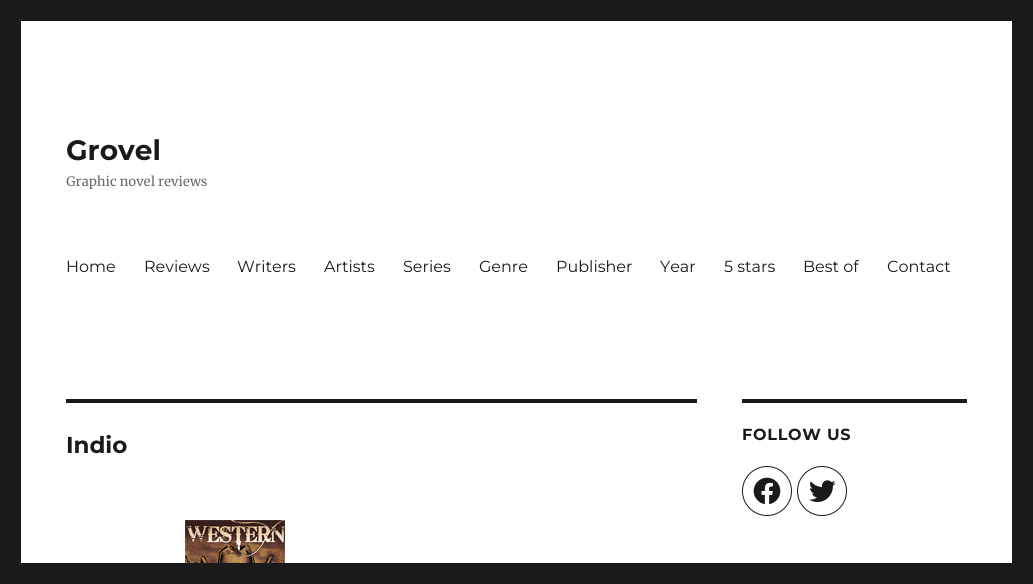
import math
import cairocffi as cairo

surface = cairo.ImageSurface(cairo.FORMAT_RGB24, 1033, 584)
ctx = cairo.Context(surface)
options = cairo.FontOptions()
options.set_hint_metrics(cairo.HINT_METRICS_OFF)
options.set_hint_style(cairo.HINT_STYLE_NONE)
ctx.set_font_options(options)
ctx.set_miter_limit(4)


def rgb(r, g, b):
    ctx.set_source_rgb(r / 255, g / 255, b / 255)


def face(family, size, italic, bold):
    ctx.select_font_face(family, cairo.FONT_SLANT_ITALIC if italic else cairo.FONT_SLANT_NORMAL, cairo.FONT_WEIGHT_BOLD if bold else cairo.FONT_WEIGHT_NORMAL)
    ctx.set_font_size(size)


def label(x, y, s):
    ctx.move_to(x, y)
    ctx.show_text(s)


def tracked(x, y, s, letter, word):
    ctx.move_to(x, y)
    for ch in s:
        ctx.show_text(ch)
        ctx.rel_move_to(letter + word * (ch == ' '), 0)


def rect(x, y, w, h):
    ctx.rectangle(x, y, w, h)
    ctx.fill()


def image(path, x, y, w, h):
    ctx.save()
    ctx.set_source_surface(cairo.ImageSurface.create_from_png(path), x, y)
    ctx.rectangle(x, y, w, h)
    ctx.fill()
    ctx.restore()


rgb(26, 26, 26)
ctx.paint()
rgb(255, 255, 255)
rect(21, 21, 991, 542)
face('Montserrat Thin', 28, 0, 0)
rgb(26, 26, 26)
label(66, 160, 'Grovel')
ctx.save()
ctx.rectangle(66, 133, 141, 56)
ctx.clip()
face('Merriweather', 13, 0, 0)
rgb(104, 104, 104)
label(66, 186, 'Graphic novel reviews')
ctx.restore()
face('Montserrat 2 Thin', 16, 0, 0)
label(66, 272, 'Home')
label(144, 272, 'Reviews')
label(237, 272, 'Writers')
label(324, 272, 'Artists')
label(403, 272, 'Series')
label(479, 272, 'Genre')
label(556, 272, 'Publisher')
label(660, 272, 'Year')
label(724, 272, '5 stars')
label(803, 272, 'Best of')
label(887, 272, 'Contact')
rect(66, 399, 631, 4)
face('Montserrat Thin', 23, 0, 0)
label(66, 453, 'Indio')
image('image0.png', 185, 520, 100, 43)
rect(742, 399, 225, 4)
face('Montserrat Thin', 16, 0, 0)
tracked(742, 440, 'FOLLOW US', 0.75, 0)
ctx.new_path()
ctx.arc(767, 491, 24.5, 0, 2 * math.pi)
ctx.set_line_width(1)
ctx.stroke()
image('image1.png', 753, 477, 28, 28)
ctx.arc(822, 491, 24.5, 0, 2 * math.pi)
ctx.stroke()
image('image2.png', 809, 480, 27, 22)
surface.write_to_png('render.png')
